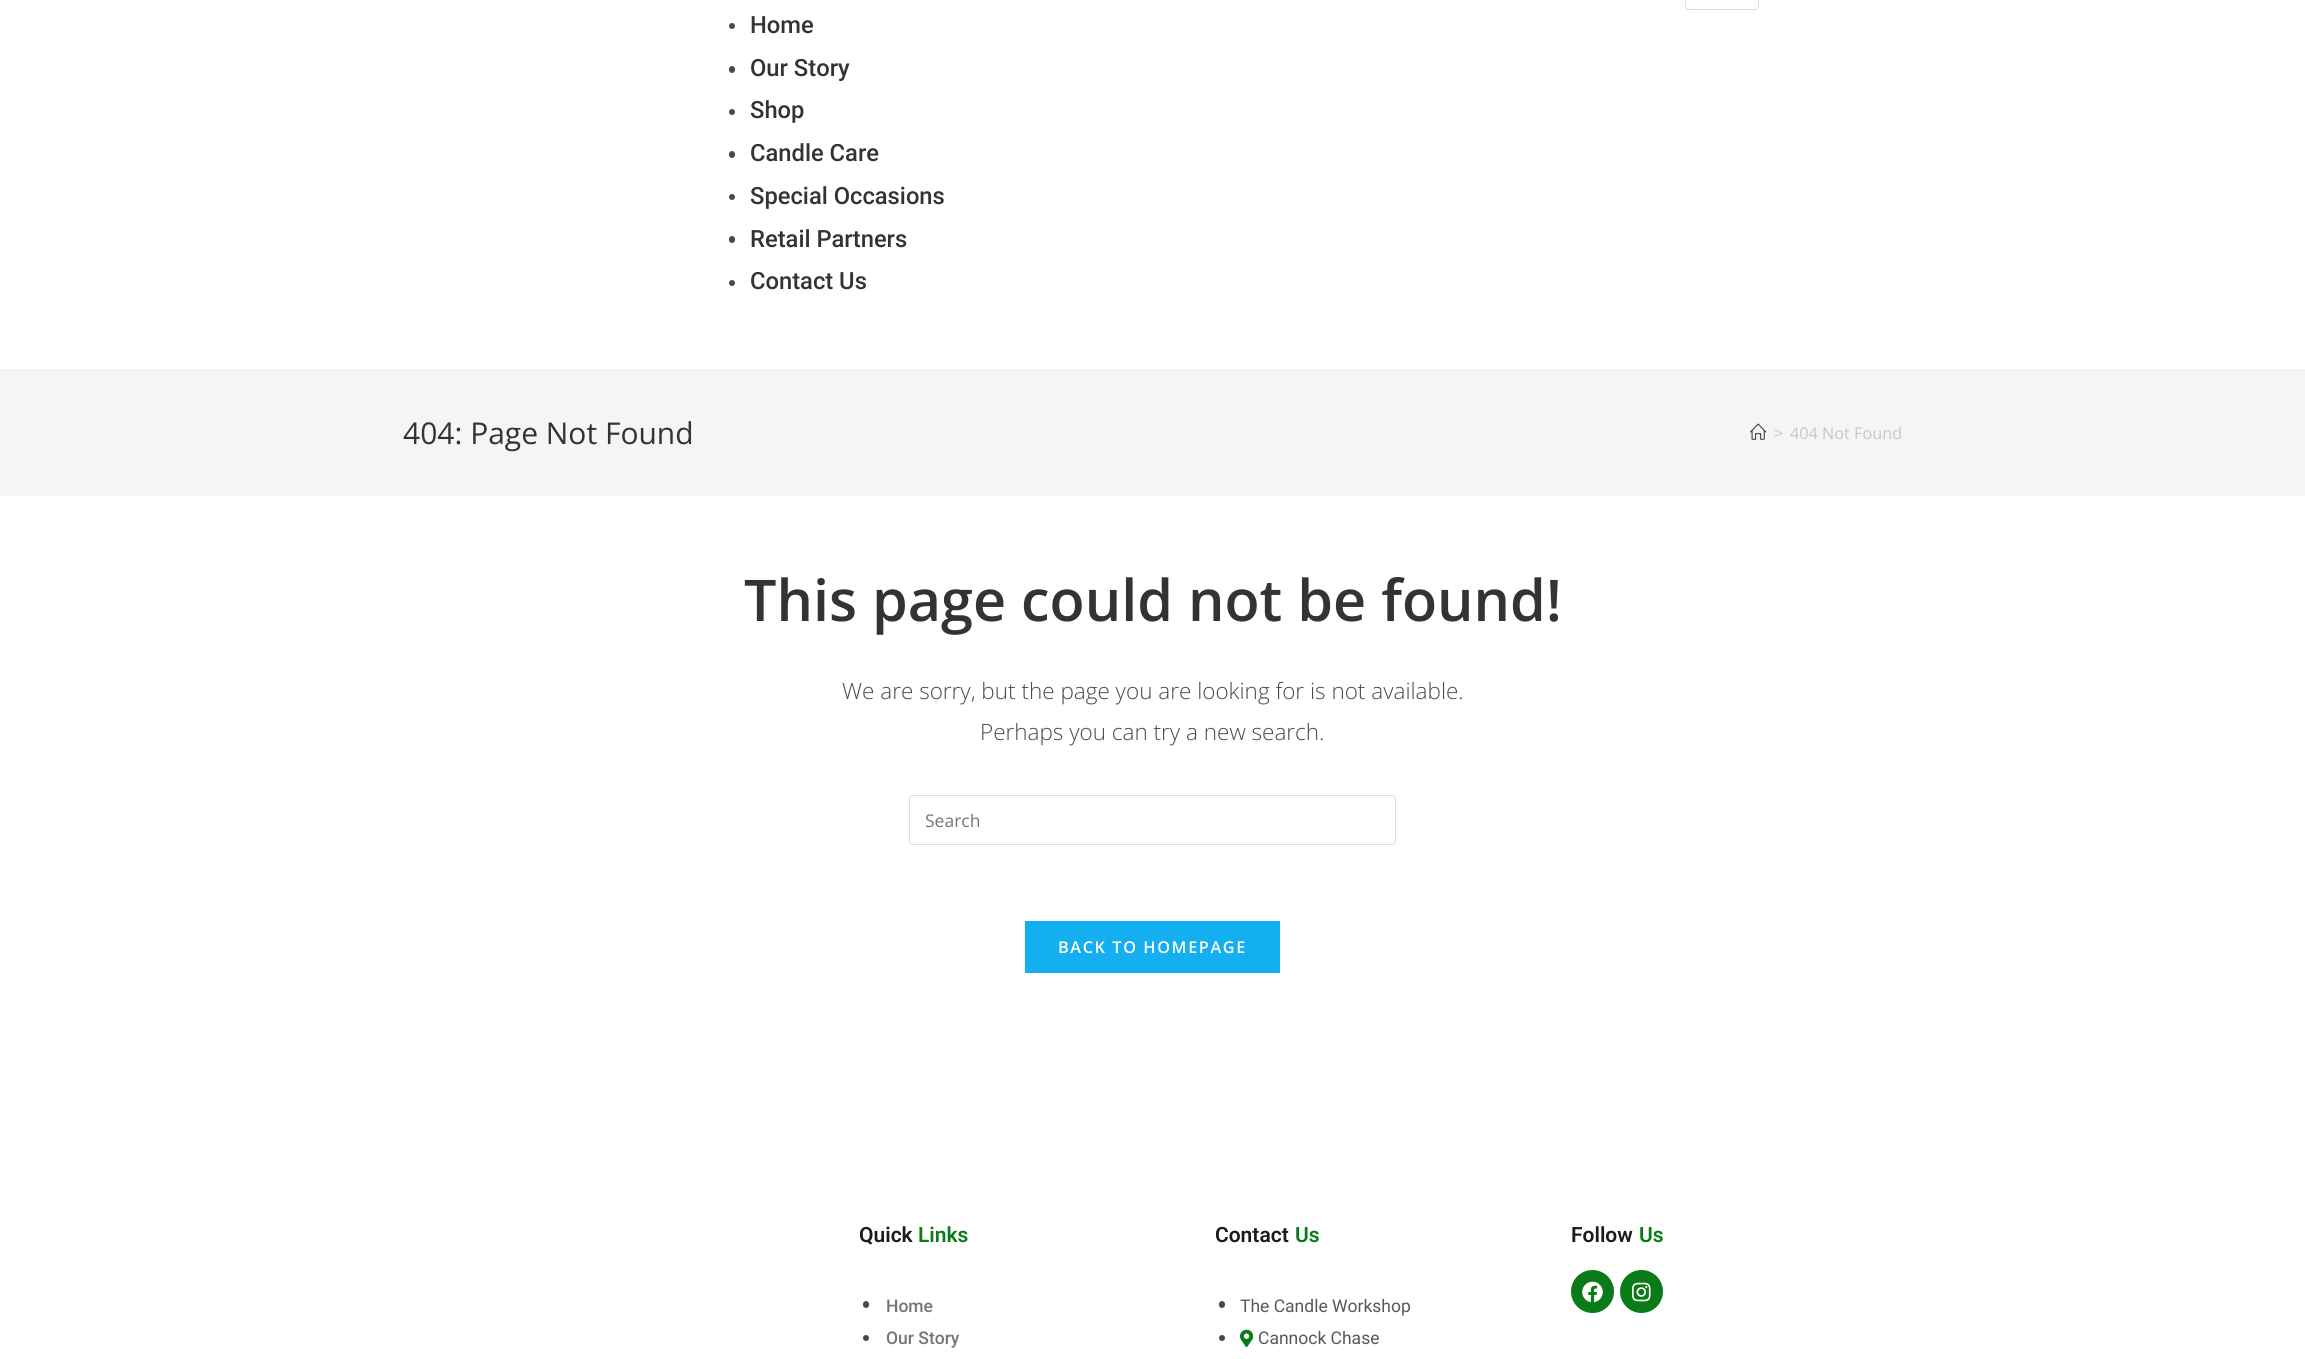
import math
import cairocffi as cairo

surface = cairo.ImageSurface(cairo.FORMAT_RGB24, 2305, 1359)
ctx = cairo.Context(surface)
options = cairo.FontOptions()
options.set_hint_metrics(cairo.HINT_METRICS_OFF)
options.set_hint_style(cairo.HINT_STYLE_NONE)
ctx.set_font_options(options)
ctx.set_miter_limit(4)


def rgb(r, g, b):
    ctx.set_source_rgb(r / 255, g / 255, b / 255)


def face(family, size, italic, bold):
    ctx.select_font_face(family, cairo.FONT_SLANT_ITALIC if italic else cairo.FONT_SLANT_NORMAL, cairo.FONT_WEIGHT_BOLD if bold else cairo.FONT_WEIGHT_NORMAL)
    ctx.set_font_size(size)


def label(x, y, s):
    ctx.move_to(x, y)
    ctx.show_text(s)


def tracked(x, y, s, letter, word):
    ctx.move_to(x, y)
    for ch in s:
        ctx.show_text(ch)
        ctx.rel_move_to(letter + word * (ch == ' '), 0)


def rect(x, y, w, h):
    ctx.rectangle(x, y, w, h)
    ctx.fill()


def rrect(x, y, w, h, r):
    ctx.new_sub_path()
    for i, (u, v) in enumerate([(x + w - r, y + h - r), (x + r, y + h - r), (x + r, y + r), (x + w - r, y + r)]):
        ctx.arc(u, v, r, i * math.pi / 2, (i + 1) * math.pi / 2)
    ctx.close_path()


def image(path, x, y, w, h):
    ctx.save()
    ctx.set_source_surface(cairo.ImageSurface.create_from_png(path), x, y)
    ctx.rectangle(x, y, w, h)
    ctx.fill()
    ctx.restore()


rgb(255, 255, 255)
ctx.paint()
rgb(241, 241, 241)
rect(0, 369, 2305, 1)
rrect(1685.5, -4.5, 73, 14, 3.5)
rgb(221, 221, 221)
ctx.set_line_width(1)
ctx.stroke()
rgb(74, 74, 74)
ctx.arc(732, 26, 3, 0, 2 * math.pi)
ctx.fill()
face('Roboto Medium', 23.75, 0, 0)
rgb(51, 51, 51)
label(750, 33, 'Home')
rgb(74, 74, 74)
rrect(729, 66, 6, 7, 3)
ctx.fill()
rgb(51, 51, 51)
label(750, 76, 'Our Story')
rgb(74, 74, 74)
ctx.new_path()
ctx.arc(732, 112, 3, 0, 2 * math.pi)
ctx.fill()
rgb(51, 51, 51)
label(750, 118, 'Shop')
rgb(74, 74, 74)
rrect(729, 151, 6, 7, 3)
ctx.fill()
rgb(51, 51, 51)
label(750, 161, 'Candle Care')
rgb(74, 74, 74)
ctx.new_path()
ctx.arc(732, 197, 3, 0, 2 * math.pi)
ctx.fill()
rgb(51, 51, 51)
label(750, 204, 'Special Occasions')
rgb(74, 74, 74)
rrect(729, 236, 6, 7, 3)
ctx.fill()
rgb(51, 51, 51)
label(750, 247, 'Retail Partners')
rgb(74, 74, 74)
ctx.new_path()
ctx.arc(732, 283, 3, 0, 2 * math.pi)
ctx.fill()
rgb(51, 51, 51)
label(750, 289, 'Contact Us')
rgb(245, 245, 245)
rect(0, 370, 2305, 126)
face('Open Sans', 30, 0, 0)
rgb(51, 51, 51)
label(403, 444, '404: Page Not Found')
image('image0.png', 1750, 423, 17, 17)
face('Open Sans', 16.25, 0, 0)
rgb(198, 198, 198)
label(1774, 439, '>')
label(1790, 439, '404 Not Found')
face('Open Sans SemiBold', 57.5, 0, 0)
rgb(51, 51, 51)
label(744, 621, 'This page could not be found!')
face('Open Sans Light', 22.5, 0, 0)
rgb(74, 74, 74)
label(842, 699, 'We are sorry, but the page you are looking for is not available.')
label(980, 740, 'Perhaps you can try a new search.')
rrect(909.5, 795.5, 486, 49, 3.5)
rgb(221, 221, 221)
ctx.stroke()
face('Open Sans', 17.5, 0, 0)
rgb(117, 117, 117)
label(925, 827, 'Search')
rgb(19, 175, 240)
rect(1025, 921, 255, 52)
face('Open Sans SemiBold', 16.25, 0, 0)
rgb(255, 255, 255)
tracked(1058, 953, 'BACK TO HOMEPAGE', 1.6, 0)
face('Roboto SemiBold', 21, 0, 0)
rgb(27, 27, 27)
label(859, 1242, 'Quick')
rgb(10, 123, 24)
label(918, 1242, 'Links')
rgb(74, 74, 74)
rrect(863, 1301, 6, 7, 3)
ctx.fill()
face('Roboto Medium', 17.5, 0, 0)
rgb(117, 117, 117)
label(886, 1312, 'Home')
rgb(74, 74, 74)
ctx.new_path()
ctx.arc(866, 1338, 3, 0, 2 * math.pi)
ctx.fill()
rgb(117, 117, 117)
label(886, 1344, 'Our Story')
face('Roboto SemiBold', 21, 0, 0)
rgb(27, 27, 27)
label(1215, 1242, 'Contact')
rgb(10, 123, 24)
label(1295, 1242, 'Us')
rgb(74, 74, 74)
rrect(1219, 1301, 6, 7, 3)
ctx.fill()
face('Roboto', 17.5, 0, 0)
rgb(84, 89, 95)
label(1240, 1312, 'The Candle Workshop')
rgb(74, 74, 74)
ctx.new_path()
ctx.arc(1222, 1338, 3, 0, 2 * math.pi)
ctx.fill()
image('image1.png', 1240, 1329, 14, 19)
rgb(84, 89, 95)
label(1258, 1344, 'Cannock Chase')
face('Roboto SemiBold', 21, 0, 0)
rgb(27, 27, 27)
label(1571, 1242, 'Follow')
rgb(10, 123, 24)
label(1639, 1242, 'Us')
ctx.new_path()
ctx.arc(1592.5, 1291.5, 21.5, 0, 2 * math.pi)
ctx.fill()
image('image2.png', 1582, 1281, 21, 22)
ctx.arc(1641.5, 1291.5, 21.5, 0, 2 * math.pi)
ctx.fill()
image('image3.png', 1632, 1282, 19, 20)
surface.write_to_png('render.png')
